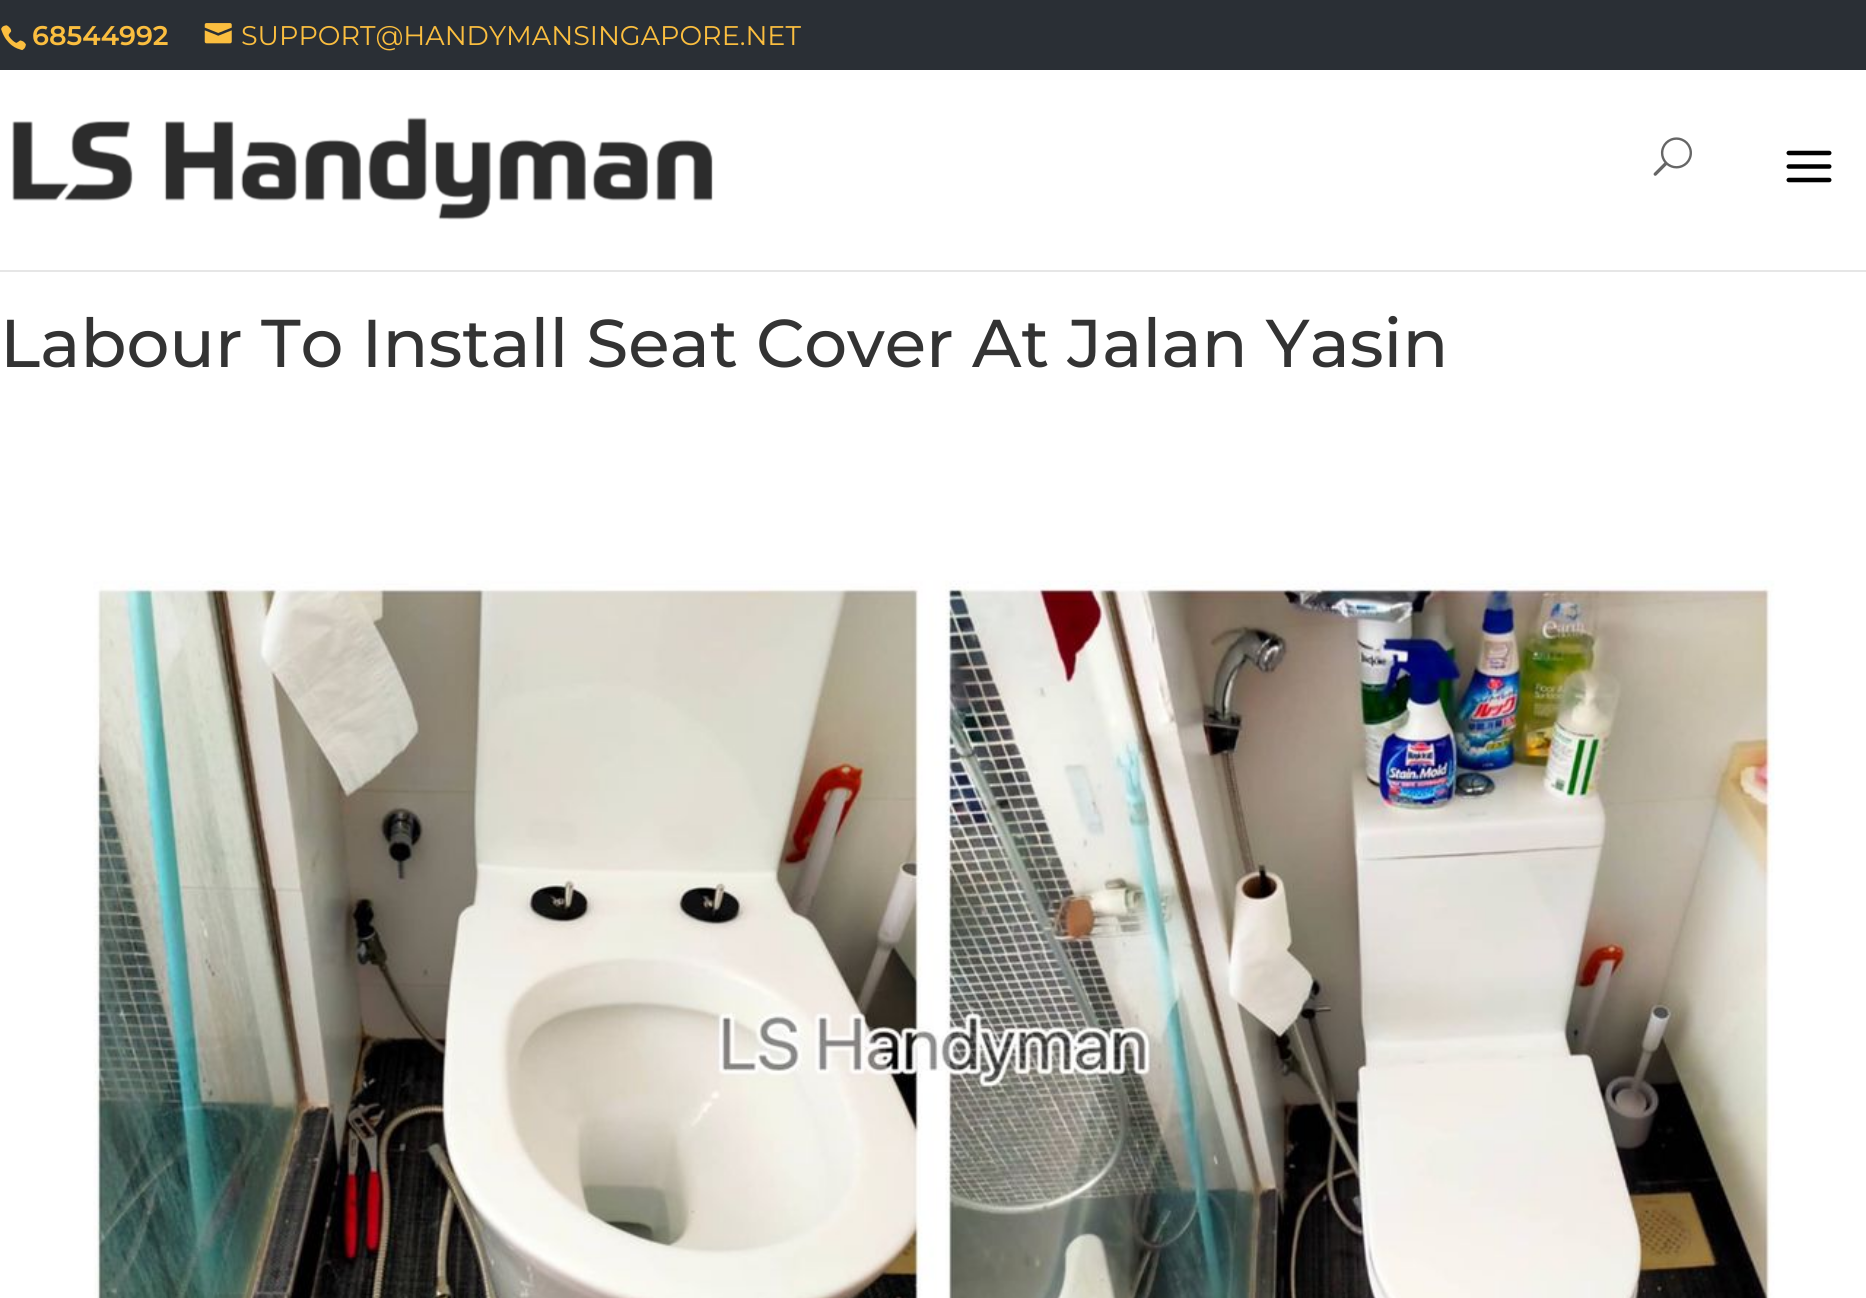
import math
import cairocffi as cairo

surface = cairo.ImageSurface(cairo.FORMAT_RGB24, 1866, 1298)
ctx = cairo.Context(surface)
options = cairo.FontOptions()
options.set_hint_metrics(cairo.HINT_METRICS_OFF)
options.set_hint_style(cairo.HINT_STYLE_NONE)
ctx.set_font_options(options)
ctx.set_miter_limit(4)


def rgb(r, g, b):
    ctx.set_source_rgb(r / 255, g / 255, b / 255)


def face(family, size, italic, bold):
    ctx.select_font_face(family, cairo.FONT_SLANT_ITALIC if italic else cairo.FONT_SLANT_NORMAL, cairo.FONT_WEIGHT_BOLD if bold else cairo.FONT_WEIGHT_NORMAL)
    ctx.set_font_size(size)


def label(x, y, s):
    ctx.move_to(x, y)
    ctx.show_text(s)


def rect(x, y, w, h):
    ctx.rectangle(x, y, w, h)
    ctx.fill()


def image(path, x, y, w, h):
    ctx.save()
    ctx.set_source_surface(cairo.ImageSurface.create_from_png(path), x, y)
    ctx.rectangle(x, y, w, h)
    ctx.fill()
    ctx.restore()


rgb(255, 255, 255)
ctx.paint()
rgb(42, 47, 53)
rect(0, 0, 1866, 70)
image('image0.png', 1, 25, 25, 26)
face('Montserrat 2 Thin', 27, 0, 0)
rgb(251, 190, 63)
label(32, 45, '68544992')
image('image1.png', 204, 23, 28, 21)
face('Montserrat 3 Thin', 27, 0, 0)
label(241, 45, 'SUPPORT@HANDYMANSINGAPORE.NET')
rgb(230, 230, 230)
ctx.new_path()
ctx.move_to(0, 270)
ctx.line_to(0, 272)
ctx.line_to(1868, 272)
ctx.line_to(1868, 70)
ctx.line_to(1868, 270)
ctx.close_path()
ctx.fill()
image('image2.png', 12, 117, 701, 103)
image('image3.png', 1653, 137, 39, 39)
image('image4.png', 1786, 150, 46, 33)
face('Montserrat Thin', 67.5, 0, 0)
rgb(51, 51, 51)
label(0, 367, 'Labour To Install Seat Cover At Jalan Yasin')
image('image5.png', 93, 580, 1682, 718)
surface.write_to_png('render.png')
